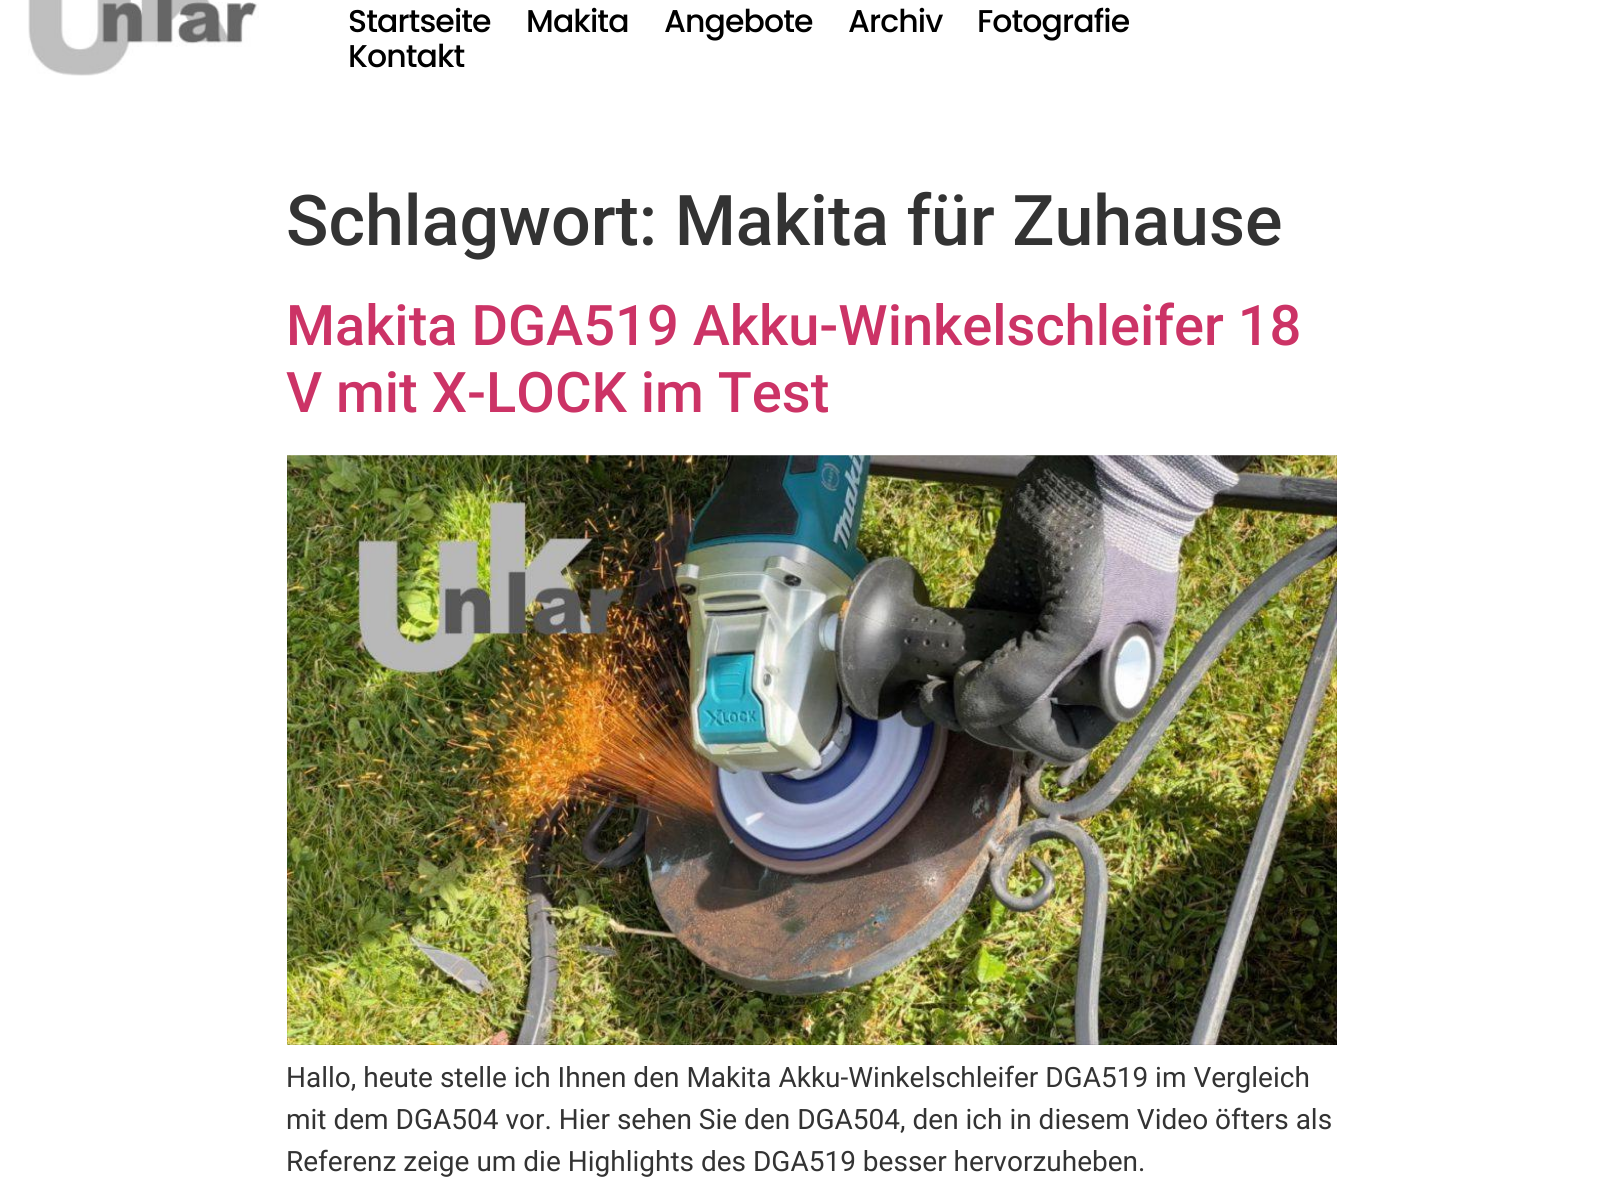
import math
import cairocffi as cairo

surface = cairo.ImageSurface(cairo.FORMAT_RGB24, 1621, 1178)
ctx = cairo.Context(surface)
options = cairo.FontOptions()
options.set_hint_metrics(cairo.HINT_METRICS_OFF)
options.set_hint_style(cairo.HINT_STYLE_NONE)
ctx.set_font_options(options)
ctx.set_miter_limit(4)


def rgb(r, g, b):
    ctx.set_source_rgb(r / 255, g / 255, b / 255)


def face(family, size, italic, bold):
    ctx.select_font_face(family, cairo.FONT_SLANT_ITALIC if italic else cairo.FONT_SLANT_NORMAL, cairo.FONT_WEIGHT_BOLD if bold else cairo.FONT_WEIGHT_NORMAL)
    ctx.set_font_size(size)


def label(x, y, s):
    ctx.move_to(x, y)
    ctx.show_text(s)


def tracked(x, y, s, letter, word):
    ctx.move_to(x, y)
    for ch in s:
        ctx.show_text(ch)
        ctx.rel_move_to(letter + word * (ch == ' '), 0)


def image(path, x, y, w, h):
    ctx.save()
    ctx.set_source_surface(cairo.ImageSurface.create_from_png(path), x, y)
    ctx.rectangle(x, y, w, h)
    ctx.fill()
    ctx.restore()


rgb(255, 255, 255)
ctx.paint()
image('image0.png', 28, 0, 231, 76)
face('Poppins Medium', 31.5, 0, 0)
rgb(0, 0, 0)
tracked(348, 32, 'Startseite', -0.9, 0)
tracked(526, 32, 'Makita', -0.9, 0)
tracked(664, 32, 'Angebote', -0.9, 0)
tracked(848, 32, 'Archiv', -0.9, 0)
tracked(977, 32, 'Fotografie', -0.9, 0)
tracked(348, 67, 'Kontakt', -0.9, 0)
face('Roboto Medium', 70, 0, 0)
rgb(51, 51, 51)
label(286, 245, 'Schlagwort: Makita für Zuhause')
face('Roboto Medium', 56, 0, 0)
rgb(204, 51, 102)
label(286, 345, 'Makita DGA519 Akku-Winkelschleifer 18')
label(286, 412, 'V mit X-LOCK im Test')
image('image1.png', 287, 455, 1050, 590)
face('Roboto', 28, 0, 0)
rgb(51, 51, 51)
label(286, 1087, 'Hallo, heute stelle ich Ihnen den Makita Akku-Winkelschleifer DGA519 im Vergleich')
label(286, 1129, 'mit dem DGA504 vor. Hier sehen Sie den DGA504, den ich in diesem Video öfters als')
label(286, 1171, 'Referenz zeige um die Highlights des DGA519 besser hervorzuheben.')
surface.write_to_png('render.png')
